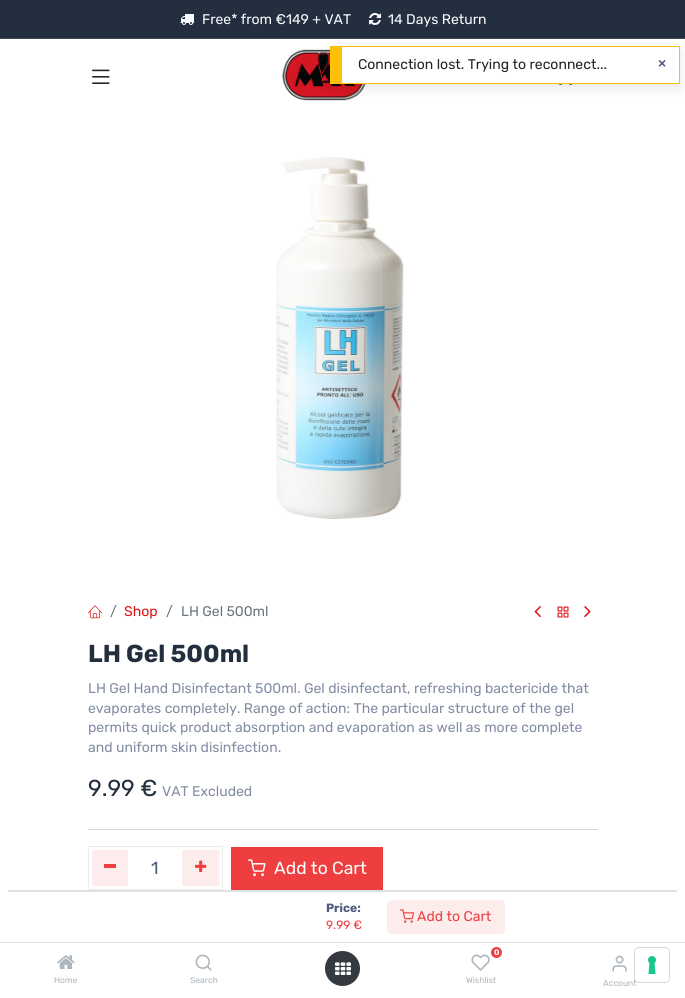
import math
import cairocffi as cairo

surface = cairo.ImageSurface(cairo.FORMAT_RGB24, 685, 998)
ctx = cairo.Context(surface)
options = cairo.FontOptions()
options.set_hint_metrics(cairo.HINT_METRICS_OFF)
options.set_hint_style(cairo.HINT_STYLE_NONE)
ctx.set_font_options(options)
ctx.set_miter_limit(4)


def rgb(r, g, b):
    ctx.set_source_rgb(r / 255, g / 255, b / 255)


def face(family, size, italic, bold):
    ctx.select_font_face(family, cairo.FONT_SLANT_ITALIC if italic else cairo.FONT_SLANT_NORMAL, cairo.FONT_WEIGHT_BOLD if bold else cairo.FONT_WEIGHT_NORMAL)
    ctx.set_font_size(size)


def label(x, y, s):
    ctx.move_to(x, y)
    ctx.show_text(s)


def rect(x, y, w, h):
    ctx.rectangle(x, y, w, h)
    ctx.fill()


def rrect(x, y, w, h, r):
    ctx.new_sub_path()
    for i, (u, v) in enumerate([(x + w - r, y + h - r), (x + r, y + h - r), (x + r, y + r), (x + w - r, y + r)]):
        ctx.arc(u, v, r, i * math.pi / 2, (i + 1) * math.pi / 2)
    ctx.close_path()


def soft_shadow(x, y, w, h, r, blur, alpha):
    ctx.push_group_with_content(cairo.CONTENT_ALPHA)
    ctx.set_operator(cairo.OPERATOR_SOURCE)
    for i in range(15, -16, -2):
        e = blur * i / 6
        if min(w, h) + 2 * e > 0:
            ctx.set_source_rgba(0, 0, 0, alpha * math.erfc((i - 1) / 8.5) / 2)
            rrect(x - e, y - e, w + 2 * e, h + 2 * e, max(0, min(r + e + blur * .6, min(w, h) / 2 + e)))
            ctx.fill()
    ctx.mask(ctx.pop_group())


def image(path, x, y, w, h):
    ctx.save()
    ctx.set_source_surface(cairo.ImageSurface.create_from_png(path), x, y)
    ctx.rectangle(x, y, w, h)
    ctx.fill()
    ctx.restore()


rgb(255, 255, 255)
ctx.paint()
rgb(35, 47, 62)
rect(0, 0, 685, 38)
rgb(61, 72, 85)
rect(0, 38, 685, 1)
image('image0.png', 180, 14, 14, 11)
face('Rubik', 14, 0, 0)
rgb(249, 250, 254)
label(202, 24, 'Free* from €149 + VAT')
image('image1.png', 369, 13, 12, 12)
label(388, 24, '14 Days Return')
image('image2.png', 92, 69, 18, 15)
image('image3.png', 282, 49, 84, 52)
image('image4.png', 559, 84, 13, 1)
image('image5.png', 276, 157, 128, 362)
image('image6.png', 88, 605, 14, 14)
rgb(108, 117, 125)
label(110, 616, '/')
rgb(221, 18, 21)
label(124, 616, 'Shop')
rgb(108, 117, 125)
label(166, 616, '/')
label(181, 616, 'LH Gel 500ml')
image('image7.png', 534, 606, 7, 12)
image('image8.png', 557, 606, 12, 12)
image('image9.png', 584, 606, 7, 12)
face('Rubik', 24.5, 0, 1)
rgb(35, 47, 62)
label(88, 662, 'LH Gel 500ml')
face('Rubik', 14, 0, 0)
rgb(130, 140, 163)
label(88, 693, 'LH Gel Hand Disinfectant 500ml. Gel disinfectant, refreshing bactericide that')
label(88, 713, 'evaporates completely. Range of action: The particular structure of the gel')
label(88, 732, 'permits quick product absorption and evaporation as well as more complete')
label(88, 752, 'and uniform skin disinfection.')
face('Rubik', 23, 0, 0)
rgb(35, 47, 62)
label(88, 796, '9.99 €')
face('Rubik', 14, 0, 0)
rgb(130, 140, 163)
label(162, 796, 'VAT Excluded')
rgb(211, 214, 222)
rect(88, 829, 510, 1)
ctx.rectangle(88.5, 846.5, 134, 43)
rgb(233, 236, 239)
ctx.set_line_width(1)
ctx.stroke()
rgb(253, 236, 236)
rect(92, 850, 36, 36)
rgb(239, 62, 64)
rect(104, 864, 12, 4)
face('Rubik', 17.5, 0, 0)
rgb(77, 91, 124)
label(151, 874, '1')
rgb(253, 236, 236)
rect(182, 850, 37, 36)
image('image10.png', 195, 860, 12, 12)
rgb(239, 62, 64)
rect(231, 847, 152, 43)
image('image11.png', 248, 859, 18, 18)
rgb(255, 255, 255)
label(274, 874, 'Add to Cart')
rgb(222, 226, 230)
rect(8, 890, 669, 2)
rect(0, 942, 685, 1)
face('Rubik', 12, 0, 1)
rgb(77, 91, 124)
label(326, 912, 'Price:')
face('Rubik', 12, 0, 0)
rgb(239, 62, 64)
label(326, 929, '9.99 €')
rgb(253, 236, 236)
rrect(387, 900, 118, 34, 5)
ctx.fill()
image('image12.png', 400, 909, 14, 14)
face('Rubik', 14, 0, 0)
rgb(239, 62, 64)
label(417, 921, 'Add to Cart')
image('image13.png', 57, 955, 18, 14)
face('Rubik', 8.5, 0, 0)
rgb(173, 181, 189)
label(54, 983, 'Home')
image('image14.png', 195, 954, 17, 17)
label(190, 983, 'Search')
rgb(52, 58, 64)
ctx.new_path()
ctx.arc(342.5, 968.5, 17.5, 0, 2 * math.pi)
ctx.fill()
image('image15.png', 335, 962, 16, 13)
rgb(239, 62, 64)
ctx.arc(496.5, 952.5, 5.5, 0, 2 * math.pi)
ctx.fill()
face('Rubik', 8, 0, 1)
rgb(255, 255, 255)
label(494, 955, '0')
image('image16.png', 471, 954, 19, 17)
face('Rubik', 8.5, 0, 0)
rgb(173, 181, 189)
label(466, 983, 'Wishlist')
image('image17.png', 612, 955, 15, 17)
label(603, 986, 'Account')
rgb(0, 0, 0)
soft_shadow(330, 50, 350, 38, 0, 6, 0.1)
rgb(255, 255, 255)
rect(342, 47, 337, 36)
rgb(255, 193, 7)
rect(342, 46, 338, 1)
rect(679, 46, 1, 38)
rect(342, 83, 338, 1)
rect(330, 46, 12, 38)
face('Rubik', 14, 0, 0)
rgb(33, 37, 41)
label(358, 69, 'Connection lost. Trying to reconnect...')
face('Liberation Sans', 14, 0, 1)
rgb(77, 91, 124)
label(658, 68, '×')
rrect(634.5, 947.5, 35, 35, 4.5)
ctx.set_source_rgba(0, 0, 0, 0.15)
ctx.stroke()
rgb(255, 255, 255)
rrect(635, 948, 34, 34, 4)
ctx.fill()
image('image18.png', 648, 956, 8, 18)
surface.write_to_png('render.png')
